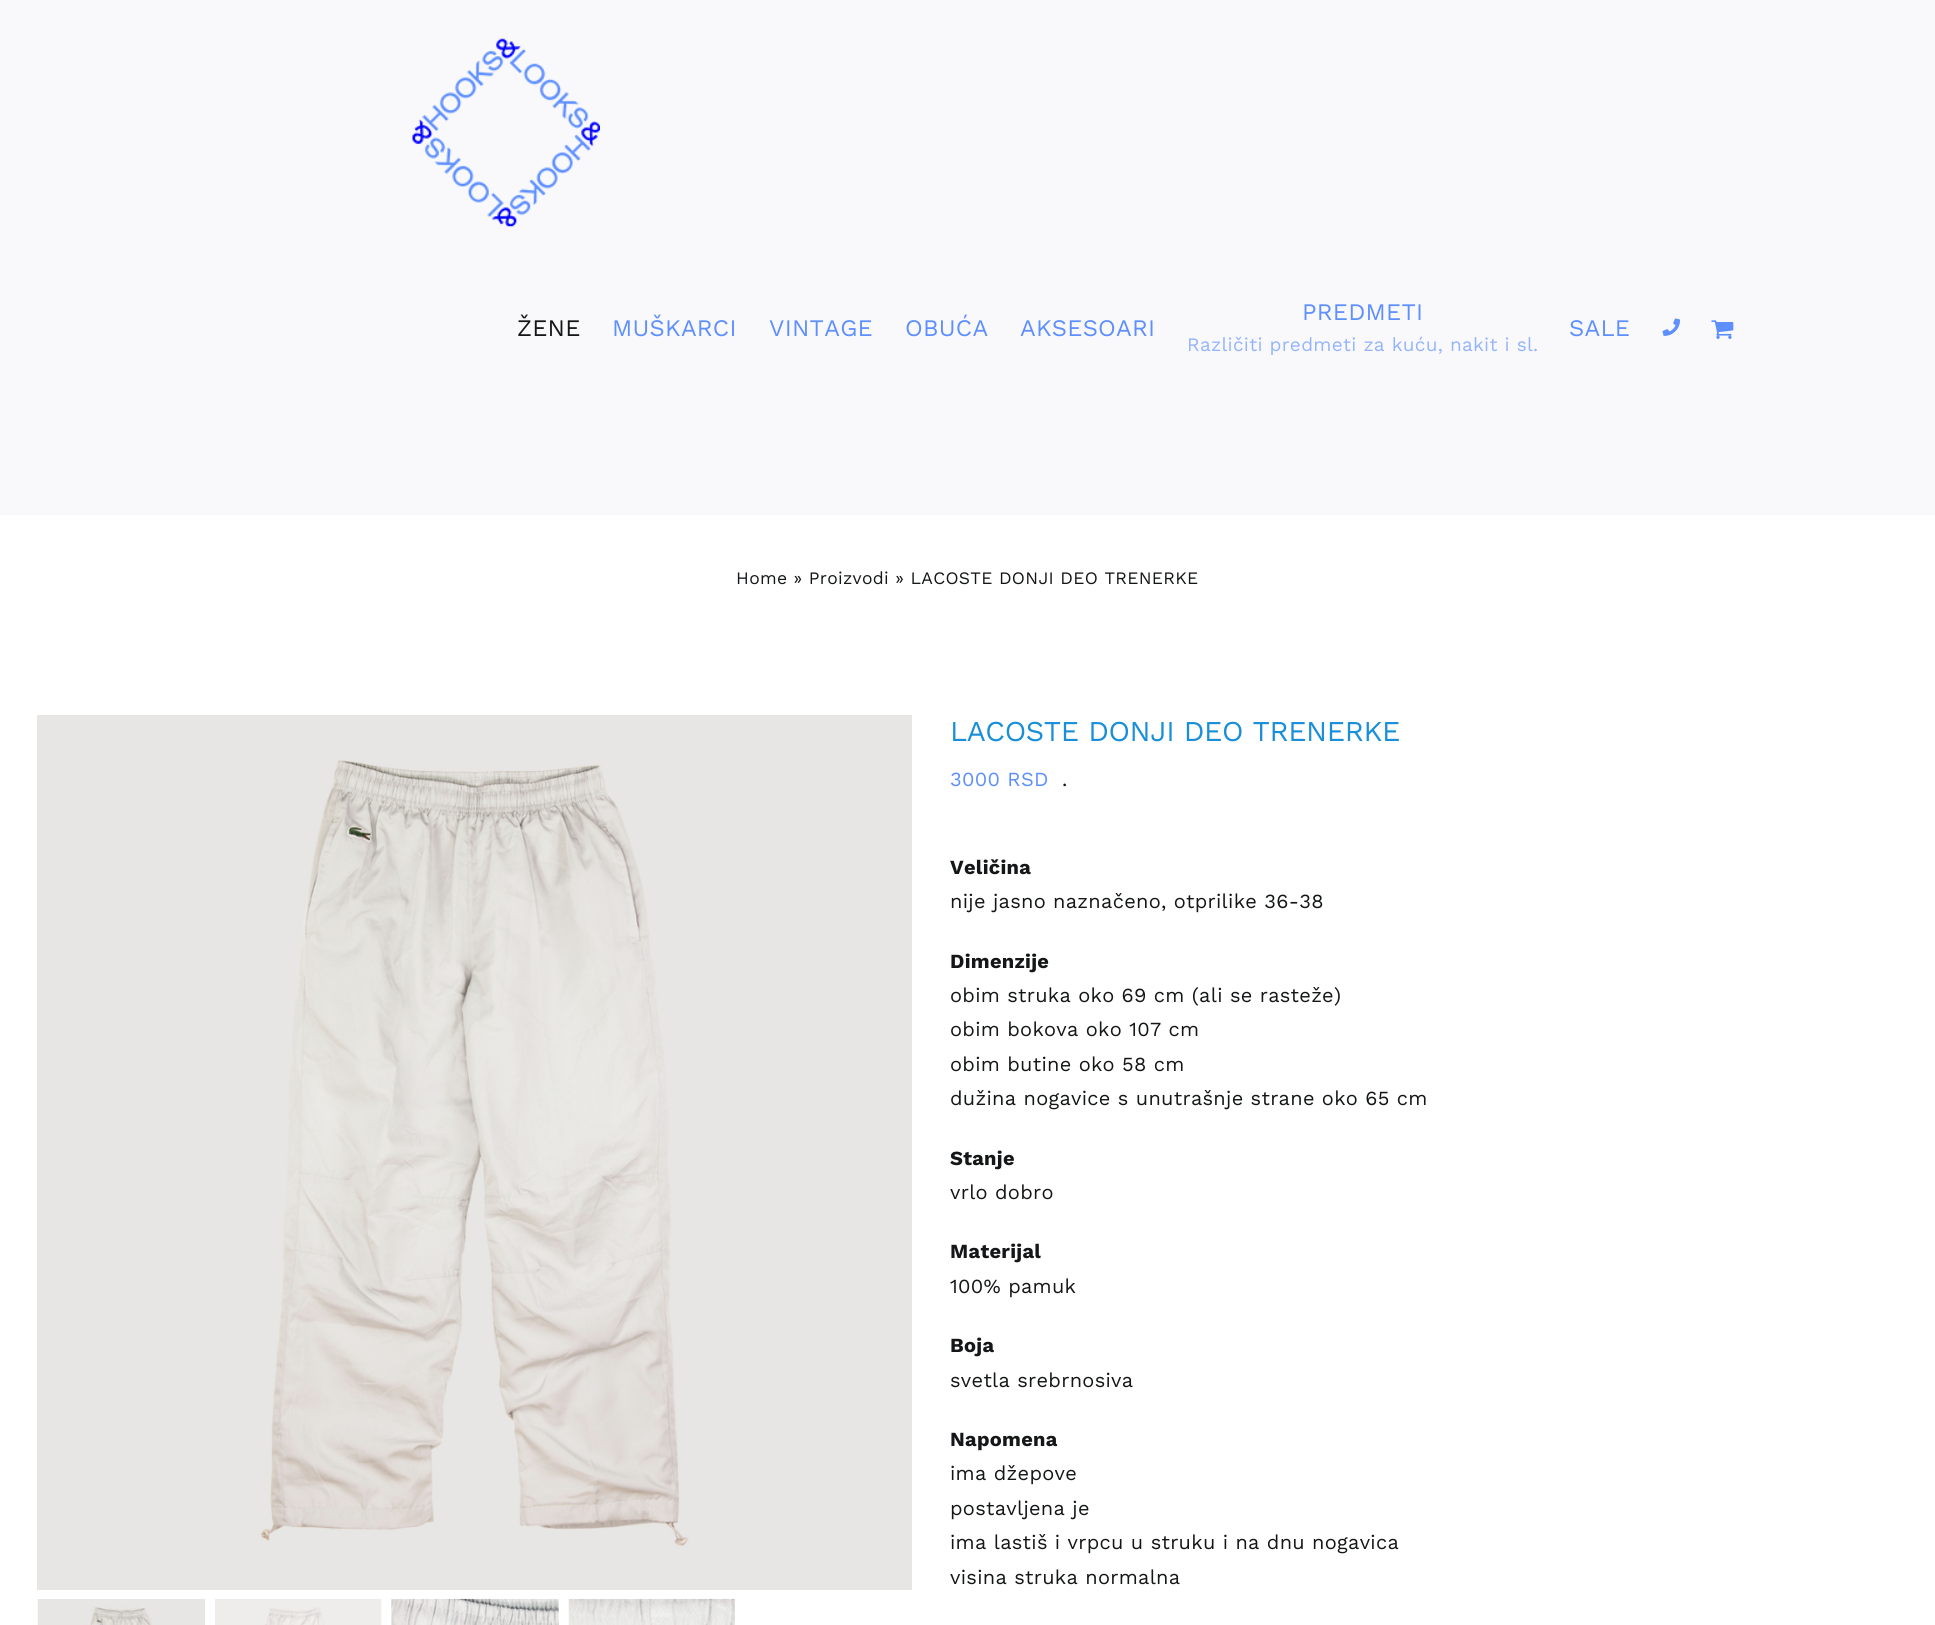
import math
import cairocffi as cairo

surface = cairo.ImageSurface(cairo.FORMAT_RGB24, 1935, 1625)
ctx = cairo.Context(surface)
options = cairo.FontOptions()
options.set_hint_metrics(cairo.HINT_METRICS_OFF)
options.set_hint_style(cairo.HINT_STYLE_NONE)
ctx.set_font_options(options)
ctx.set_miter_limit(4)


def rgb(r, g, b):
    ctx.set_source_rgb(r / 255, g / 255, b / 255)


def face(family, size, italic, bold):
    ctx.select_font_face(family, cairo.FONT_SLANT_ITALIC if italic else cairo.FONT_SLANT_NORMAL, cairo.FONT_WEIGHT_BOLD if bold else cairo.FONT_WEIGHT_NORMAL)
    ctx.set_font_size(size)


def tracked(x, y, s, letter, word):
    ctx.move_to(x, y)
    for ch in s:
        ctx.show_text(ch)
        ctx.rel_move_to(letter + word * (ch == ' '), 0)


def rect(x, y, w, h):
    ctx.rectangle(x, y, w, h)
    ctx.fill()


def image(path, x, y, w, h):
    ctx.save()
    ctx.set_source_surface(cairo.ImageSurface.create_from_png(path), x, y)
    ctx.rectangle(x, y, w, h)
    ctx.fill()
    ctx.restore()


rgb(255, 255, 255)
ctx.paint()
rgb(249, 249, 251)
rect(0, 0, 1935, 515)
image('image0.png', 412, 38, 188, 189)
face('Work Sans', 23.75, 0, 0)
rgb(20, 22, 23)
tracked(517, 336, 'ŽENE', 0.25, 0)
rgb(94, 143, 255)
tracked(612, 336, 'MUŠKARCI', 0.25, 0)
tracked(769, 336, 'VINTAGE', 0.25, 0)
tracked(905, 336, 'OBUĆA', 0.25, 0)
tracked(1020, 336, 'AKSESOARI', 0.25, 0)
tracked(1302, 320, 'PREDMETI', 0.25, 0)
face('Work Sans', 19, 0, 0)
rgb(148, 180, 254)
tracked(1187, 351, 'Različiti predmeti za kuću, nakit i sl.', 0.3, 0)
face('Work Sans', 23.75, 0, 0)
rgb(94, 143, 255)
tracked(1569, 336, 'SALE', 0.25, 0)
image('image1.png', 1662, 318, 18, 18)
image('image2.png', 1711, 320, 23, 19)
face('Work Sans', 17.5, 0, 0)
rgb(20, 22, 23)
tracked(736, 584, 'Home » Proizvodi » LACOSTE DONJI DEO TRENERKE', 0.3, 0)
image('image3.png', 37, 715, 875, 875)
image('image4.png', 37, 1599, 168, 26)
image('image5.png', 215, 1599, 167, 26)
image('image6.png', 391, 1598, 168, 27)
image('image7.png', 568, 1598, 167, 27)
face('Work Sans', 28.75, 0, 0)
rgb(25, 143, 217)
tracked(950, 741, 'LACOSTE DONJI DEO TRENERKE', -0.4, 0)
face('Work Sans', 20, 0, 0)
rgb(94, 143, 255)
tracked(950, 786, '3000 RSD', 0.3, 0)
rgb(20, 22, 23)
tracked(1062, 786, '.', 0.3, 0)
face('Work Sans', 20, 0, 1)
tracked(950, 874, 'Veličina', 0.3, 0)
face('Work Sans', 20, 0, 0)
tracked(950, 908, 'nije jasno naznačeno, otprilike 36-38', 0.3, 0)
face('Work Sans', 20, 0, 1)
tracked(950, 968, 'Dimenzije', 0.3, 0)
face('Work Sans', 20, 0, 0)
tracked(950, 1002, 'obim struka oko 69 cm (ali se rasteže)', 0.3, 0)
tracked(950, 1036, 'obim bokova oko 107 cm', 0.3, 0)
tracked(950, 1071, 'obim butine oko 58 cm', 0.3, 0)
tracked(950, 1105, 'dužina nogavice s unutrašnje strane oko 65 cm', 0.3, 0)
face('Work Sans', 20, 0, 1)
tracked(950, 1165, 'Stanje', 0.3, 0)
face('Work Sans', 20, 0, 0)
tracked(950, 1199, 'vrlo dobro', 0.3, 0)
face('Work Sans', 20, 0, 1)
tracked(950, 1258, 'Materijal', 0.3, 0)
face('Work Sans', 20, 0, 0)
tracked(950, 1293, '100% pamuk', 0.3, 0)
face('Work Sans', 20, 0, 1)
tracked(950, 1352, 'Boja', 0.3, 0)
face('Work Sans', 20, 0, 0)
tracked(950, 1387, 'svetla srebrnosiva', 0.3, 0)
face('Work Sans', 20, 0, 1)
tracked(950, 1446, 'Napomena', 0.3, 0)
face('Work Sans', 20, 0, 0)
tracked(950, 1480, 'ima džepove', 0.3, 0)
tracked(950, 1515, 'postavljena je', 0.3, 0)
tracked(950, 1549, 'ima lastiš i vrpcu u struku i na dnu nogavica', 0.3, 0)
tracked(950, 1584, 'visina struka normalna', 0.3, 0)
surface.write_to_png('render.png')
